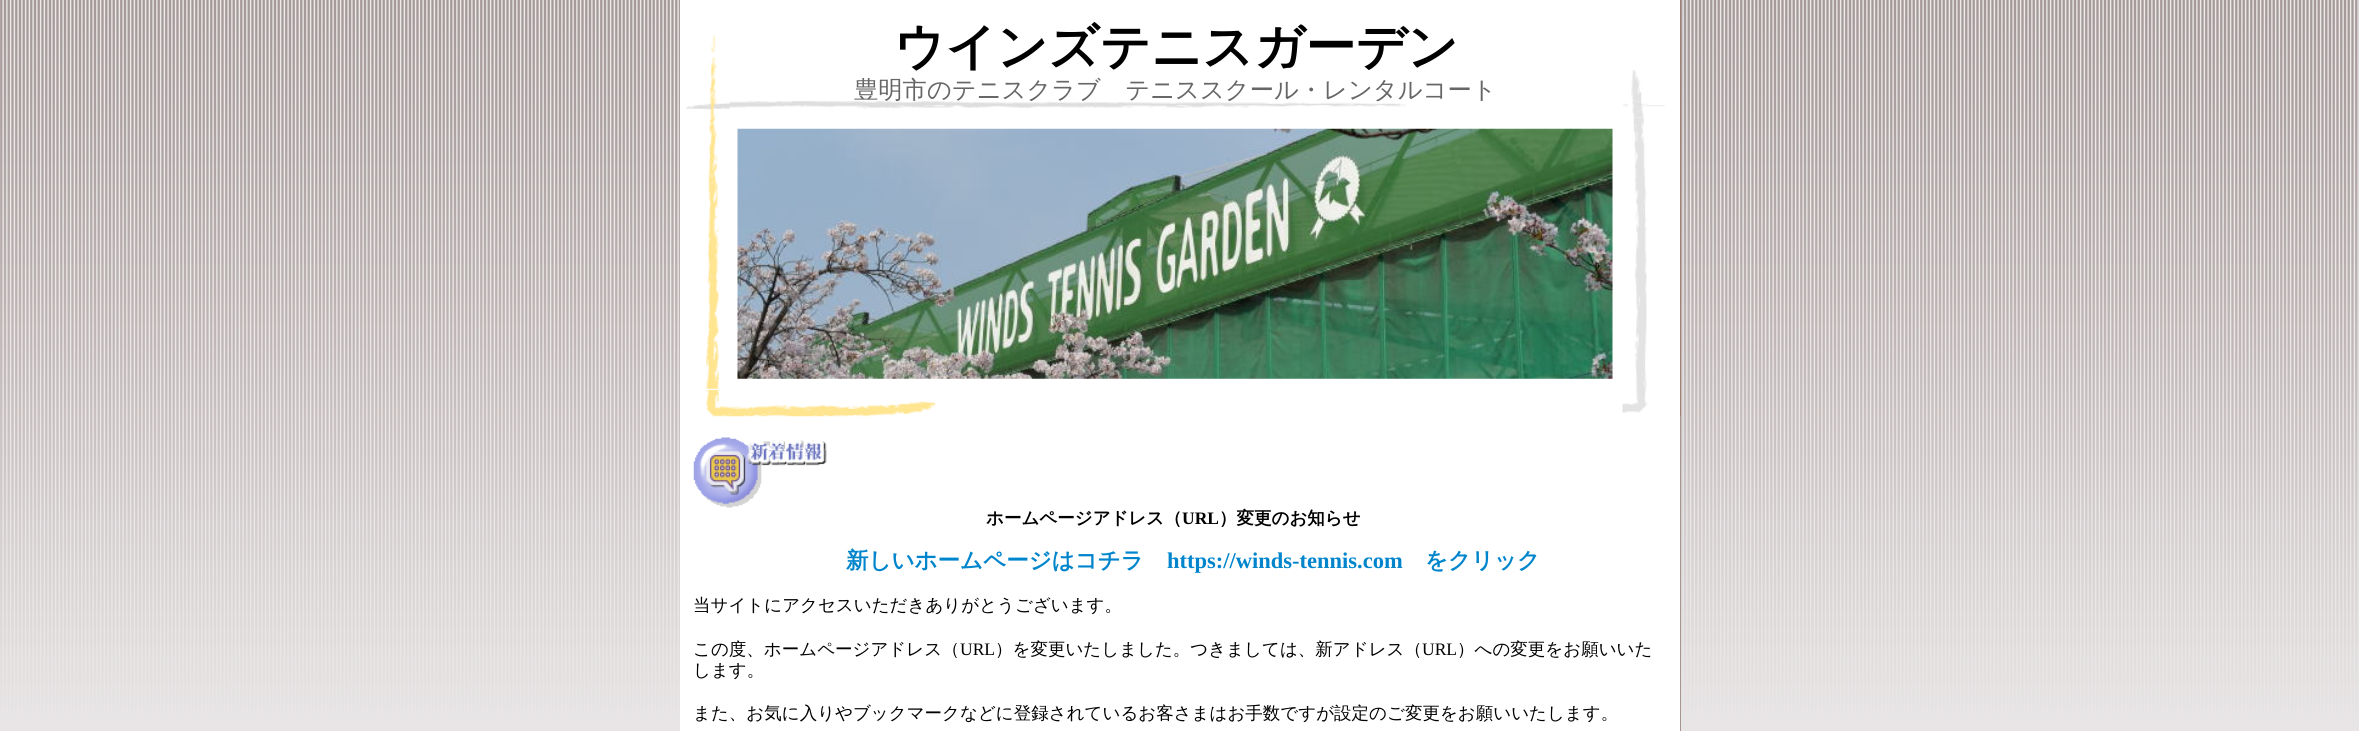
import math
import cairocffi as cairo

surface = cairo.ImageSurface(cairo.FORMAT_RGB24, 2359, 731)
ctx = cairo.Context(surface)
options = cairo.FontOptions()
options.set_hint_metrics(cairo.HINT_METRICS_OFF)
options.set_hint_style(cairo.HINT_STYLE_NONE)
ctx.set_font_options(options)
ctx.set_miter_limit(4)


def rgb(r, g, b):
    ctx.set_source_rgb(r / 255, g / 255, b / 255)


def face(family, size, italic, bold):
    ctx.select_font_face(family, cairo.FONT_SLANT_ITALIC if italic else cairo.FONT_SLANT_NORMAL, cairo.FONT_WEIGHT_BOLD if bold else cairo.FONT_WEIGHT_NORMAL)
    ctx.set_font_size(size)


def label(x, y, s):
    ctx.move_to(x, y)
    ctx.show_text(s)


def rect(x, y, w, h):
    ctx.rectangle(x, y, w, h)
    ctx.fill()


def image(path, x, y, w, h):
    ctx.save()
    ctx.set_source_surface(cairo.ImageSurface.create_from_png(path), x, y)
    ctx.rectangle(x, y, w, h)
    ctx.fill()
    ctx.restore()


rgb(255, 255, 255)
ctx.paint()
image('image0.png', 0, 0, 2359, 731)
rgb(255, 255, 255)
rect(680, 0, 1000, 416)
image('image1.png', 709, 35, 8, 67)
face('WenQuanYi Zen Hei', 50.25, 0, 1)
rgb(0, 0, 0)
label(894, 64, 'ウインズテニスガーデン')
face('WenQuanYi Zen Hei Medium', 24.3, 0, 0)
rgb(102, 102, 102)
label(854, 98, '豊明市のテニスクラブ　テニススクール・レンタルコート')
rgb(160, 128, 113)
rect(1680, 0, 1, 416)
image('image2.png', 1631, 70, 11, 32)
image('image3.png', 686, 101, 44, 17)
image('image4.png', 730, 101, 676, 8)
image('image5.png', 1622, 101, 43, 17)
image('image6.png', 706, 117, 13, 272)
image('image7.png', 737, 128, 876, 251)
image('image8.png', 1633, 117, 14, 273)
rgb(255, 255, 255)
rect(680, 416, 1000, 315)
image('image9.png', 706, 390, 24, 27)
image('image10.png', 730, 401, 206, 16)
image('image11.png', 1622, 390, 26, 23)
rgb(165, 150, 143)
rect(1680, 416, 1, 315)
image('image12.png', 693, 437, 134, 71)
face('WenQuanYi Zen Hei', 17.5, 0, 1)
rgb(0, 0, 0)
label(986, 524, 'ホームページアドレス（')
face('Liberation Serif', 17.5, 0, 1)
label(1182, 524, 'URL')
face('WenQuanYi Zen Hei', 17.5, 0, 1)
label(1219, 524, '）変更のお知らせ')
face('WenQuanYi Zen Hei', 22.5, 0, 1)
rgb(0, 133, 204)
label(846, 568, '新しいホームページはコチラ')
face('Liberation Serif', 22.5, 0, 1)
label(1167, 568, 'https://winds-tennis.com')
face('WenQuanYi Zen Hei', 22.5, 0, 1)
label(1425, 568, 'をクリック')
face('WenQuanYi Zen Hei Medium', 17.5, 0, 0)
rgb(0, 0, 0)
label(693, 611, '当サイトにアクセスいただきありがとうございます。')
label(693, 655, 'この度、ホームページアドレス（')
face('Liberation Serif', 17.5, 0, 0)
label(960, 655, 'URL')
face('WenQuanYi Zen Hei Medium', 17.5, 0, 0)
label(995, 655, '）を変更いたしました。つきましては、新アドレス（')
face('Liberation Serif', 17.5, 0, 0)
label(1422, 655, 'URL')
face('WenQuanYi Zen Hei Medium', 17.5, 0, 0)
label(1457, 655, '）への変更をお願いいた')
label(693, 676, 'します。')
label(693, 719, 'また、お気に入りやブックマークなどに登録されているお客さまはお手数ですが設定のご変更をお願いいたします。')
surface.write_to_png('render.png')
